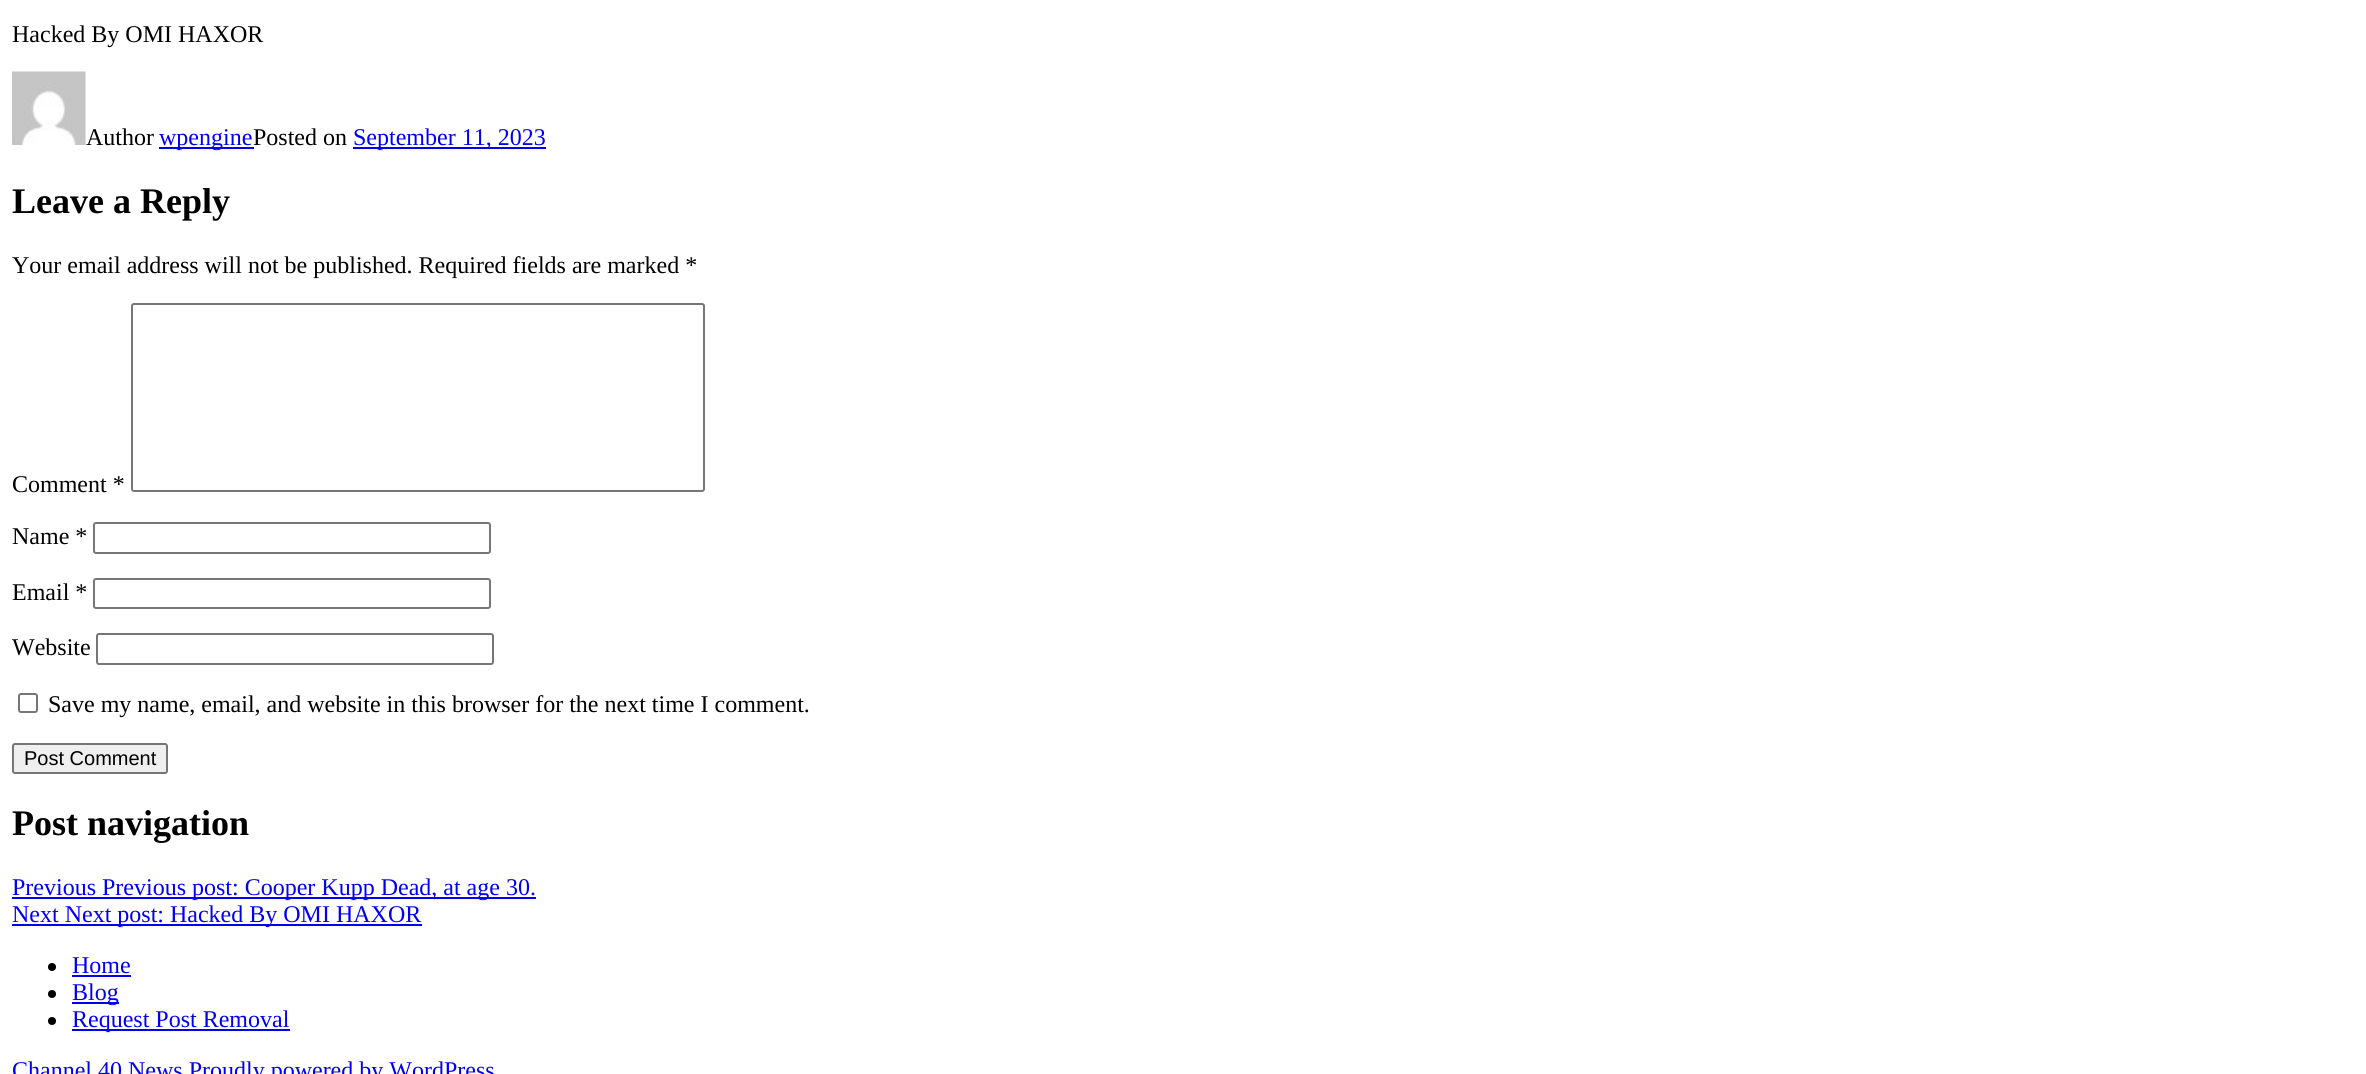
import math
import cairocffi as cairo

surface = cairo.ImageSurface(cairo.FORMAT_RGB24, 2366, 1074)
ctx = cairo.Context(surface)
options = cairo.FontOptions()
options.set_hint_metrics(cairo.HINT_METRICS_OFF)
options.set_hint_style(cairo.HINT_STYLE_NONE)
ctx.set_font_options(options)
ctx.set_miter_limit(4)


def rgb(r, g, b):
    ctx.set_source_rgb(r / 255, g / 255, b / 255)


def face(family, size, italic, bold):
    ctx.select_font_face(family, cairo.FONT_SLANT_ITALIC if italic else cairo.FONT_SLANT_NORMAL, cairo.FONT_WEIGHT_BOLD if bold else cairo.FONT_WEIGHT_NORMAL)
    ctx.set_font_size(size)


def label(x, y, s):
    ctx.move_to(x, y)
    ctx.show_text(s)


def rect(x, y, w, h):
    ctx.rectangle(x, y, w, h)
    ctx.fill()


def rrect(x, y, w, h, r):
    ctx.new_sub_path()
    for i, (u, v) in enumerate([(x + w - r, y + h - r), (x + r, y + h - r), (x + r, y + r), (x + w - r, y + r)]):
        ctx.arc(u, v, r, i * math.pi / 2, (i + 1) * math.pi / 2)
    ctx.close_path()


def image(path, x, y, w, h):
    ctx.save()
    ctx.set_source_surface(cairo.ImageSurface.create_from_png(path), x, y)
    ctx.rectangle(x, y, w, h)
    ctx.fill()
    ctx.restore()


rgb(255, 255, 255)
ctx.paint()
face('Liberation Serif', 24, 0, 0)
rgb(0, 0, 0)
label(12, 42, 'Hacked By OMI HAXOR')
image('image0.png', 12, 71, 74, 74)
label(86, 145, 'Author')
rgb(0, 0, 238)
rect(159, 147, 95, 2)
label(159, 145, 'wpengine')
rgb(0, 0, 0)
label(253, 145, 'Posted on')
rgb(0, 0, 238)
rect(353, 147, 193, 2)
label(353, 145, 'September 11, 2023')
face('Liberation Serif', 36, 0, 1)
rgb(0, 0, 0)
label(12, 213, 'Leave a Reply')
face('Liberation Serif', 24, 0, 0)
label(12, 273, 'Your email address will not be published. Required fields are marked *')
label(12, 492, 'Comment *')
rrect(132, 304, 572, 187, 2)
rgb(118, 118, 118)
ctx.stroke()
rgb(0, 0, 0)
label(12, 544, 'Name *')
rrect(94, 523, 396, 30, 2)
rgb(118, 118, 118)
ctx.stroke()
rgb(0, 0, 0)
label(12, 600, 'Email *')
rrect(94, 579, 396, 29, 2)
rgb(118, 118, 118)
ctx.stroke()
rgb(0, 0, 0)
label(12, 655, 'Website')
rrect(97, 634, 396, 30, 2)
rgb(118, 118, 118)
ctx.stroke()
rrect(19, 694, 18, 18, 2)
ctx.stroke()
rgb(0, 0, 0)
label(48, 712, 'Save my name, email, and website in this browser for the next time I comment.')
rgb(239, 239, 239)
rrect(13, 744, 154, 29, 2)
ctx.fill_preserve()
rgb(118, 118, 118)
ctx.stroke()
face('Liberation Sans', 20, 0, 0)
rgb(0, 0, 0)
label(24, 765, 'Post Comment')
face('Liberation Serif', 36, 0, 1)
label(12, 835, 'Post navigation')
rgb(0, 0, 238)
rect(12, 897, 524, 2)
face('Liberation Serif', 24, 0, 0)
label(12, 895, 'Previous Previous post: Cooper Kupp Dead, at age 30.')
rect(12, 924, 410, 2)
label(12, 922, 'Next Next post: Hacked By OMI HAXOR')
rgb(0, 0, 0)
ctx.new_path()
ctx.arc(52, 967, 4, 0, 2 * math.pi)
ctx.fill()
rgb(0, 0, 238)
label(72, 973, 'Home')
rect(72, 975, 59, 2)
rgb(0, 0, 0)
ctx.new_path()
ctx.arc(52, 994, 4, 0, 2 * math.pi)
ctx.fill()
rgb(0, 0, 238)
rect(72, 1002, 47, 2)
label(72, 1000, 'Blog')
rgb(0, 0, 0)
ctx.new_path()
ctx.arc(52, 1021, 4, 0, 2 * math.pi)
ctx.fill()
rgb(0, 0, 238)
rect(72, 1029, 218, 2)
label(72, 1027, 'Request Post Removal')
label(12, 1078, 'Channel 40 News Proudly powered by WordPress')
surface.write_to_png('render.png')
